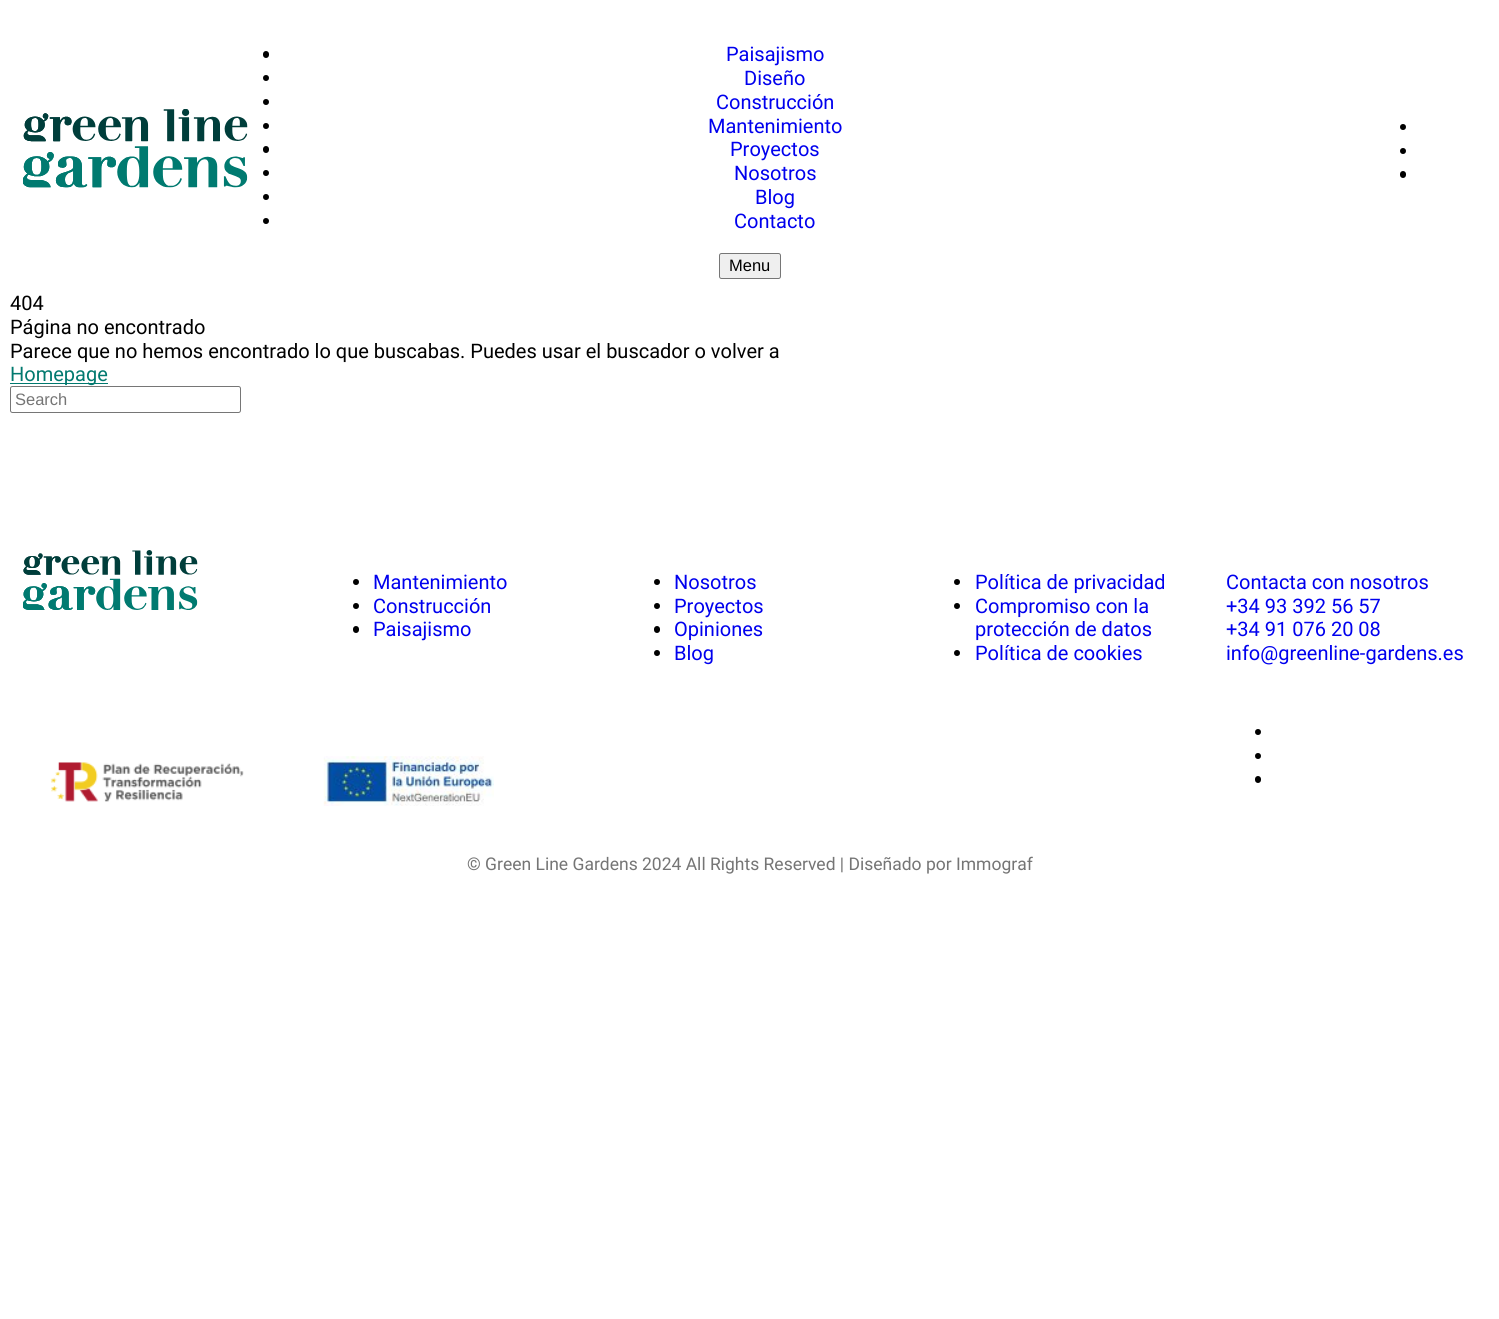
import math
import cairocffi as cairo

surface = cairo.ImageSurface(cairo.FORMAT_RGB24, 1499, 1319)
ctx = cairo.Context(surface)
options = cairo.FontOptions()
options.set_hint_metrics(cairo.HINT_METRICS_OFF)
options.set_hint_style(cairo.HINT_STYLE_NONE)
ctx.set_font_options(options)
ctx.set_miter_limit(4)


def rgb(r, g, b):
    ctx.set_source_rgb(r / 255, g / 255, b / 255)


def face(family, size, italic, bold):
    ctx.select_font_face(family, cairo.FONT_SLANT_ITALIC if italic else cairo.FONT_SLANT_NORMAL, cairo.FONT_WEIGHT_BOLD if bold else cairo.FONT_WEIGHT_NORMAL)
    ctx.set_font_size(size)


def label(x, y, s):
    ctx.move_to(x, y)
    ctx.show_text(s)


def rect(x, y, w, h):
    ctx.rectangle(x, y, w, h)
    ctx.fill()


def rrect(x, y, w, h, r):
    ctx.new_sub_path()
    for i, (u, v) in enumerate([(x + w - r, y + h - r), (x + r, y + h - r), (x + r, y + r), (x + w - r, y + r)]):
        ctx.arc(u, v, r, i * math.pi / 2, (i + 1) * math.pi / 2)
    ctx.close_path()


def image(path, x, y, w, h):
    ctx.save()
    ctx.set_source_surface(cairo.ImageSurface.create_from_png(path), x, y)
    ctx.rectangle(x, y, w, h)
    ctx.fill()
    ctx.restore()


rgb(255, 255, 255)
ctx.paint()
image('image0.png', 23, 109, 225, 79)
rgb(0, 0, 0)
rrect(263, 51, 6, 7, 3)
ctx.fill()
face('Roboto', 20, 0, 0)
rgb(0, 0, 238)
label(726, 61, 'Paisajismo')
rgb(0, 0, 0)
ctx.new_path()
ctx.arc(266, 78, 3, 0, 2 * math.pi)
ctx.fill()
rgb(0, 0, 238)
label(744, 85, 'Diseño')
rgb(0, 0, 0)
ctx.new_path()
ctx.arc(266, 102, 3, 0, 2 * math.pi)
ctx.fill()
rgb(0, 0, 238)
label(716, 109, 'Construcción')
rgb(0, 0, 0)
ctx.new_path()
ctx.arc(266, 126, 3, 0, 2 * math.pi)
ctx.fill()
rgb(0, 0, 238)
label(708, 133, 'Mantenimiento')
rgb(0, 0, 0)
rrect(263, 146, 6, 7, 3)
ctx.fill()
rgb(0, 0, 238)
label(730, 156, 'Proyectos')
rgb(0, 0, 0)
ctx.new_path()
ctx.arc(266, 173, 3, 0, 2 * math.pi)
ctx.fill()
rgb(0, 0, 238)
label(734, 180, 'Nosotros')
rgb(0, 0, 0)
ctx.new_path()
ctx.arc(266, 197, 3, 0, 2 * math.pi)
ctx.fill()
rgb(0, 0, 238)
label(755, 204, 'Blog')
rgb(0, 0, 0)
ctx.new_path()
ctx.arc(266, 221, 3, 0, 2 * math.pi)
ctx.fill()
rgb(0, 0, 238)
label(734, 228, 'Contacto')
rgb(239, 239, 239)
rrect(719.5, 253.5, 61, 25, 2)
ctx.fill_preserve()
rgb(118, 118, 118)
ctx.set_line_width(1)
ctx.stroke()
face('Liberation Sans', 16.5, 0, 0)
rgb(0, 0, 0)
label(729, 271, 'Menu')
ctx.new_path()
ctx.arc(1403, 127, 3, 0, 2 * math.pi)
ctx.fill()
ctx.arc(1403, 151, 3, 0, 2 * math.pi)
ctx.fill()
rrect(1400, 171, 6, 7, 3)
ctx.fill()
face('Roboto', 20, 0, 0)
label(10, 310, '404')
label(10, 334, 'Página no encontrado')
label(10, 358, 'Parece que no hemos encontrado lo que buscabas. Puedes usar el buscador o volver a')
rgb(1, 121, 111)
rect(10, 383, 98, 1)
label(10, 381, 'Homepage')
rrect(10.5, 386.5, 230, 26, 2)
rgb(118, 118, 118)
ctx.stroke()
face('Liberation Sans', 16.5, 0, 0)
rgb(117, 117, 117)
label(15, 405, 'Search')
image('image1.png', 23, 550, 175, 60)
image('image2.png', 50, 762, 194, 40)
rgb(0, 0, 0)
ctx.arc(356, 582, 3, 0, 2 * math.pi)
ctx.fill()
face('Roboto', 20, 0, 0)
rgb(0, 0, 238)
label(373, 589, 'Mantenimiento')
rgb(0, 0, 0)
ctx.new_path()
ctx.arc(356, 606, 3, 0, 2 * math.pi)
ctx.fill()
rgb(0, 0, 238)
label(373, 613, 'Construcción')
rgb(0, 0, 0)
rrect(353, 626, 6, 7, 3)
ctx.fill()
rgb(0, 0, 238)
label(373, 636, 'Paisajismo')
image('image3.png', 323, 756, 171, 50)
rgb(0, 0, 0)
ctx.arc(657, 582, 3, 0, 2 * math.pi)
ctx.fill()
rgb(0, 0, 238)
label(674, 589, 'Nosotros')
rgb(0, 0, 0)
ctx.new_path()
ctx.arc(657, 606, 3, 0, 2 * math.pi)
ctx.fill()
rgb(0, 0, 238)
label(674, 613, 'Proyectos')
rgb(0, 0, 0)
rrect(654, 626, 6, 7, 3)
ctx.fill()
rgb(0, 0, 238)
label(674, 636, 'Opiniones')
rgb(0, 0, 0)
ctx.new_path()
ctx.arc(657, 653, 3, 0, 2 * math.pi)
ctx.fill()
rgb(0, 0, 238)
label(674, 660, 'Blog')
rgb(0, 0, 0)
ctx.new_path()
ctx.arc(957, 582, 3, 0, 2 * math.pi)
ctx.fill()
rgb(0, 0, 238)
label(975, 589, 'Política de privacidad')
rgb(0, 0, 0)
ctx.new_path()
ctx.arc(957, 606, 3, 0, 2 * math.pi)
ctx.fill()
rgb(0, 0, 238)
label(975, 613, 'Compromiso con la')
label(975, 636, 'protección de datos')
rgb(0, 0, 0)
ctx.new_path()
ctx.arc(957, 653, 3, 0, 2 * math.pi)
ctx.fill()
rgb(0, 0, 238)
label(975, 660, 'Política de cookies')
label(1226, 589, 'Contacta con nosotros')
label(1226, 613, '+34 93 392 56 57')
label(1226, 636, '+34 91 076 20 08')
label(1226, 660, 'info@greenline-gardens.es')
rgb(0, 0, 0)
ctx.new_path()
ctx.arc(1258, 732, 3, 0, 2 * math.pi)
ctx.fill()
ctx.arc(1258, 756, 3, 0, 2 * math.pi)
ctx.fill()
rrect(1255, 776, 6, 7, 3)
ctx.fill()
face('Roboto', 17.5, 0, 0)
rgb(117, 117, 117)
label(467, 870, '© Green Line Gardens 2024 All Rights Reserved | Diseñado por Immograf')
surface.write_to_png('render.png')
